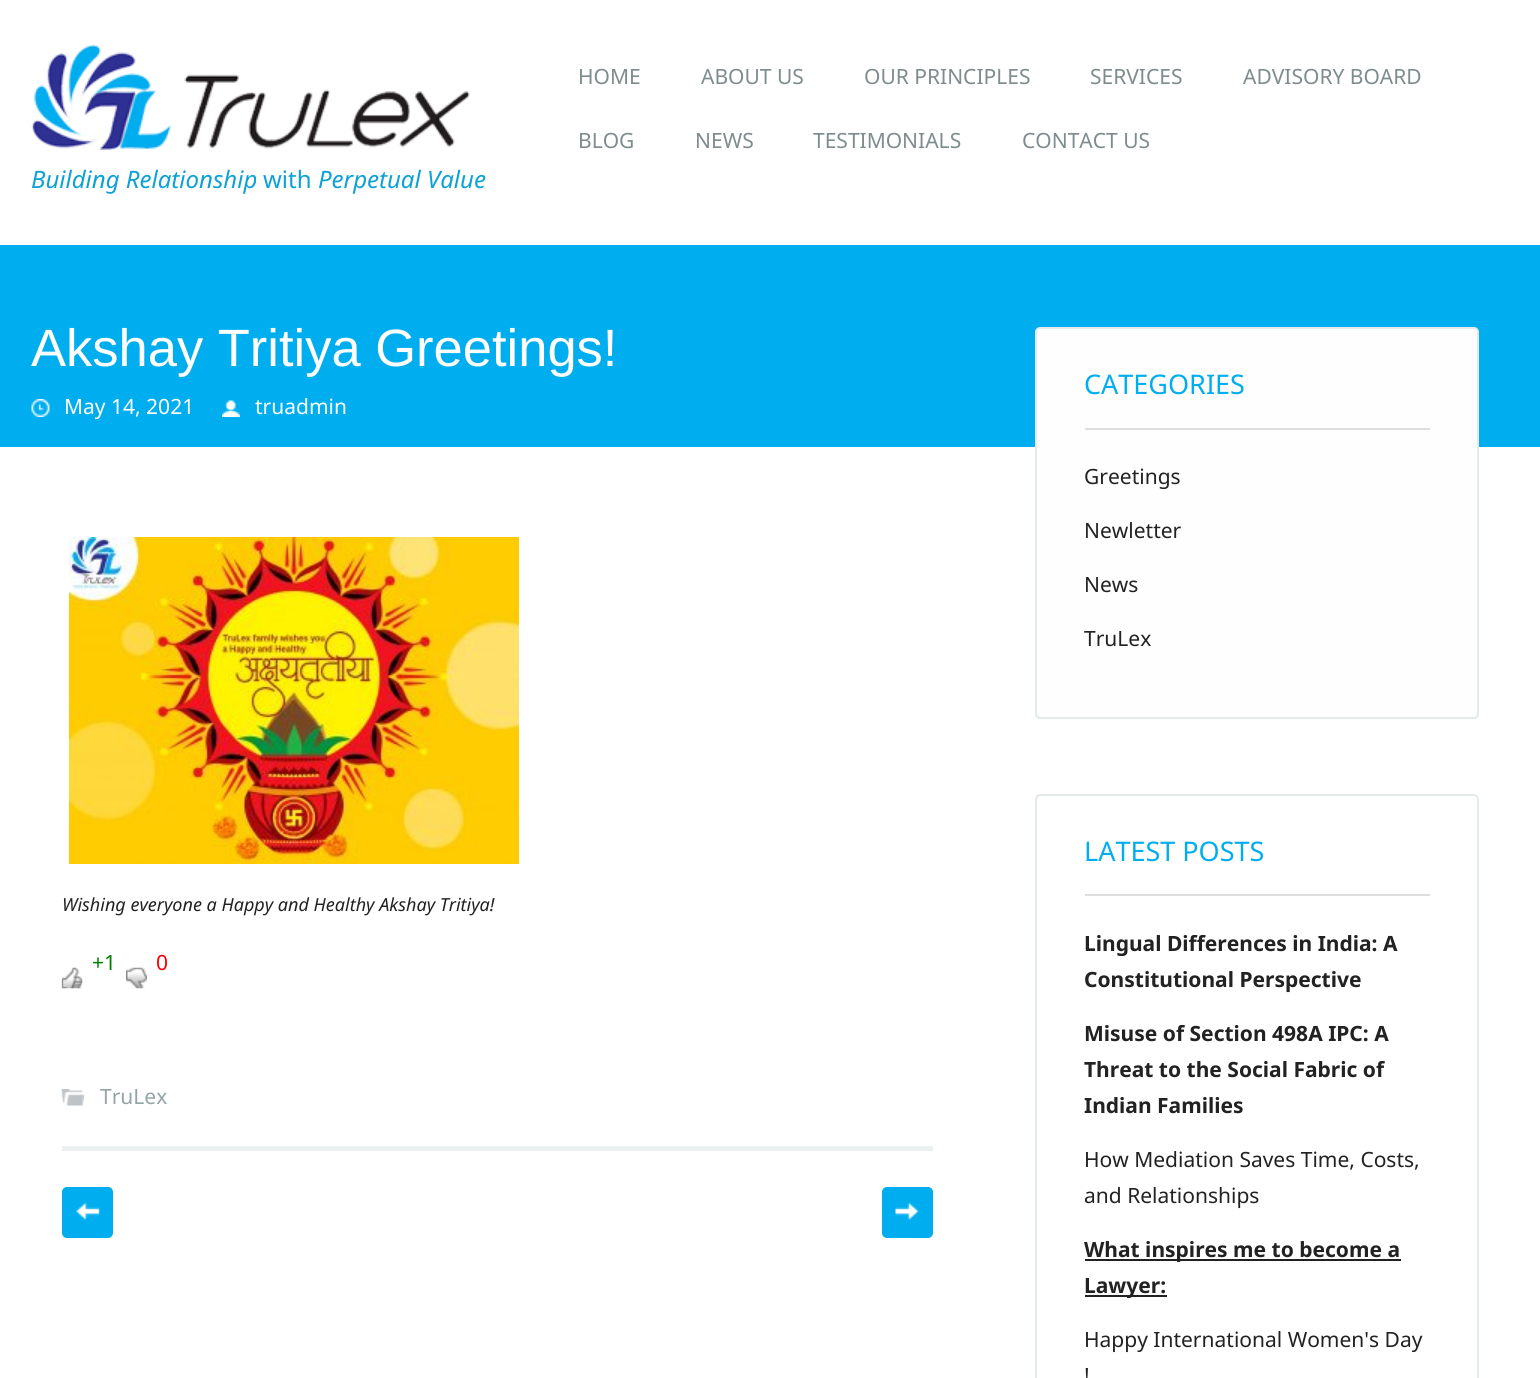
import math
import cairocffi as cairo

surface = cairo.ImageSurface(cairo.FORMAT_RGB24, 1540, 1378)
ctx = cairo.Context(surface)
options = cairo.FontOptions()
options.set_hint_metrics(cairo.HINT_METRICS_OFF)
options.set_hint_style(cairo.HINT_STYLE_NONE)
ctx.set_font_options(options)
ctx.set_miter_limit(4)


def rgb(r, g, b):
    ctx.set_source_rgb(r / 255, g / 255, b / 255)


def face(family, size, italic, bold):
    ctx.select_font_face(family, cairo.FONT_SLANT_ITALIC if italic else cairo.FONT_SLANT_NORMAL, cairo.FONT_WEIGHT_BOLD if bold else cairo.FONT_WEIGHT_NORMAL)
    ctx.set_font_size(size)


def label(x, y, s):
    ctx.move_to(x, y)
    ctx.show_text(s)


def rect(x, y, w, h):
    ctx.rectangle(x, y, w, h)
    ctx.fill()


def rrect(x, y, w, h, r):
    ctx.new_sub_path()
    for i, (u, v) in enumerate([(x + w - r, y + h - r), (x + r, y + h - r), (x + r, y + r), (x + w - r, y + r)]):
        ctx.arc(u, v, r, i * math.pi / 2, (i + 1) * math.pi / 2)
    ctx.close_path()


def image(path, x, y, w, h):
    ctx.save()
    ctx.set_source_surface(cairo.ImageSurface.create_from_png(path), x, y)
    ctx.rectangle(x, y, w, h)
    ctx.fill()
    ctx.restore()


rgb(255, 255, 255)
ctx.paint()
face('Noto Sans', 21, 0, 0)
rgb(127, 140, 141)
label(578, 84, 'HOME')
label(701, 84, 'ABOUT US')
label(864, 84, 'OUR PRINCIPLES')
label(1090, 84, 'SERVICES')
label(1243, 84, 'ADVISORY BOARD')
label(578, 148, 'BLOG')
label(695, 148, 'NEWS')
label(813, 148, 'TESTIMONIALS')
label(1022, 148, 'CONTACT US')
image('image0.png', 31, 45, 439, 105)
face('Noto Sans', 24, 1, 0)
rgb(13, 161, 214)
label(31, 188, 'Building Relationship')
face('Noto Sans', 24, 0, 0)
label(263, 188, 'with')
face('Noto Sans', 24, 1, 0)
label(318, 188, 'Perpetual Value')
rgb(0, 174, 239)
rect(0, 245, 1540, 202)
face('Liberation Sans', 52.5, 0, 0)
rgb(255, 255, 255)
label(31, 366, 'Akshay Tritiya Greetings!')
image('image1.png', 31, 399, 19, 18)
face('Noto Sans', 21, 0, 0)
label(64, 414, 'May 14, 2021')
image('image2.png', 222, 400, 18, 17)
label(255, 414, 'truadmin')
image('image3.png', 69, 537, 450, 327)
face('Noto Sans', 18, 1, 0)
rgb(34, 34, 34)
label(62, 911, 'Wishing everyone a Happy and Healthy Akshay Tritiya!')
face('Noto Sans', 21, 0, 0)
rgb(0, 128, 0)
label(92, 970, '+1')
image('image4.png', 61, 967, 22, 22)
rgb(255, 0, 0)
label(156, 970, '0')
image('image5.png', 126, 967, 21, 22)
image('image6.png', 61, 1089, 23, 17)
rgb(149, 165, 166)
label(100, 1104, 'TruLex')
rgb(236, 240, 241)
rect(62, 1146, 871, 5)
rgb(0, 174, 239)
rrect(62, 1187, 51, 51, 5)
ctx.fill()
image('image7.png', 76, 1202, 24, 18)
rrect(882, 1187, 51, 51, 5)
ctx.fill()
image('image8.png', 895, 1202, 24, 18)
rgb(254, 254, 254)
rrect(1036, 328, 442, 390, 4)
ctx.fill_preserve()
rgb(228, 233, 234)
ctx.stroke()
rgb(222, 222, 222)
rect(1085, 428, 345, 2)
face('Noto Sans', 27, 0, 0)
rgb(0, 174, 239)
label(1084, 394, 'CATEGORIES')
face('Noto Sans', 21, 0, 0)
rgb(34, 34, 34)
label(1084, 484, 'Greetings')
label(1084, 538, 'Newletter')
label(1084, 592, 'News')
label(1084, 646, 'TruLex')
rrect(1036, 795, 442, 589, 4)
rgb(228, 233, 234)
ctx.stroke()
rgb(222, 222, 222)
rect(1085, 894, 345, 2)
face('Noto Sans', 27, 0, 0)
rgb(0, 174, 239)
label(1084, 861, 'LATEST POSTS')
face('Noto Sans', 21, 0, 1)
rgb(34, 34, 34)
label(1084, 951, 'Lingual Differences in India: A')
label(1084, 987, 'Constitutional Perspective')
label(1084, 1041, 'Misuse of Section 498A IPC: A')
label(1084, 1077, 'Threat to the Social Fabric of')
label(1084, 1113, 'Indian Families')
face('Noto Sans', 21, 0, 0)
label(1084, 1167, 'How Mediation Saves Time, Costs,')
label(1084, 1203, 'and Relationships')
rect(1085, 1259, 316, 2)
face('Noto Sans', 21, 0, 1)
label(1084, 1257, 'What inspires me to become a')
rect(1085, 1295, 82, 2)
label(1084, 1293, 'Lawyer:')
face('Noto Sans', 21, 0, 0)
label(1084, 1347, 'Happy International Women\'s Day')
label(1084, 1383, '!')
surface.write_to_png('render.png')
